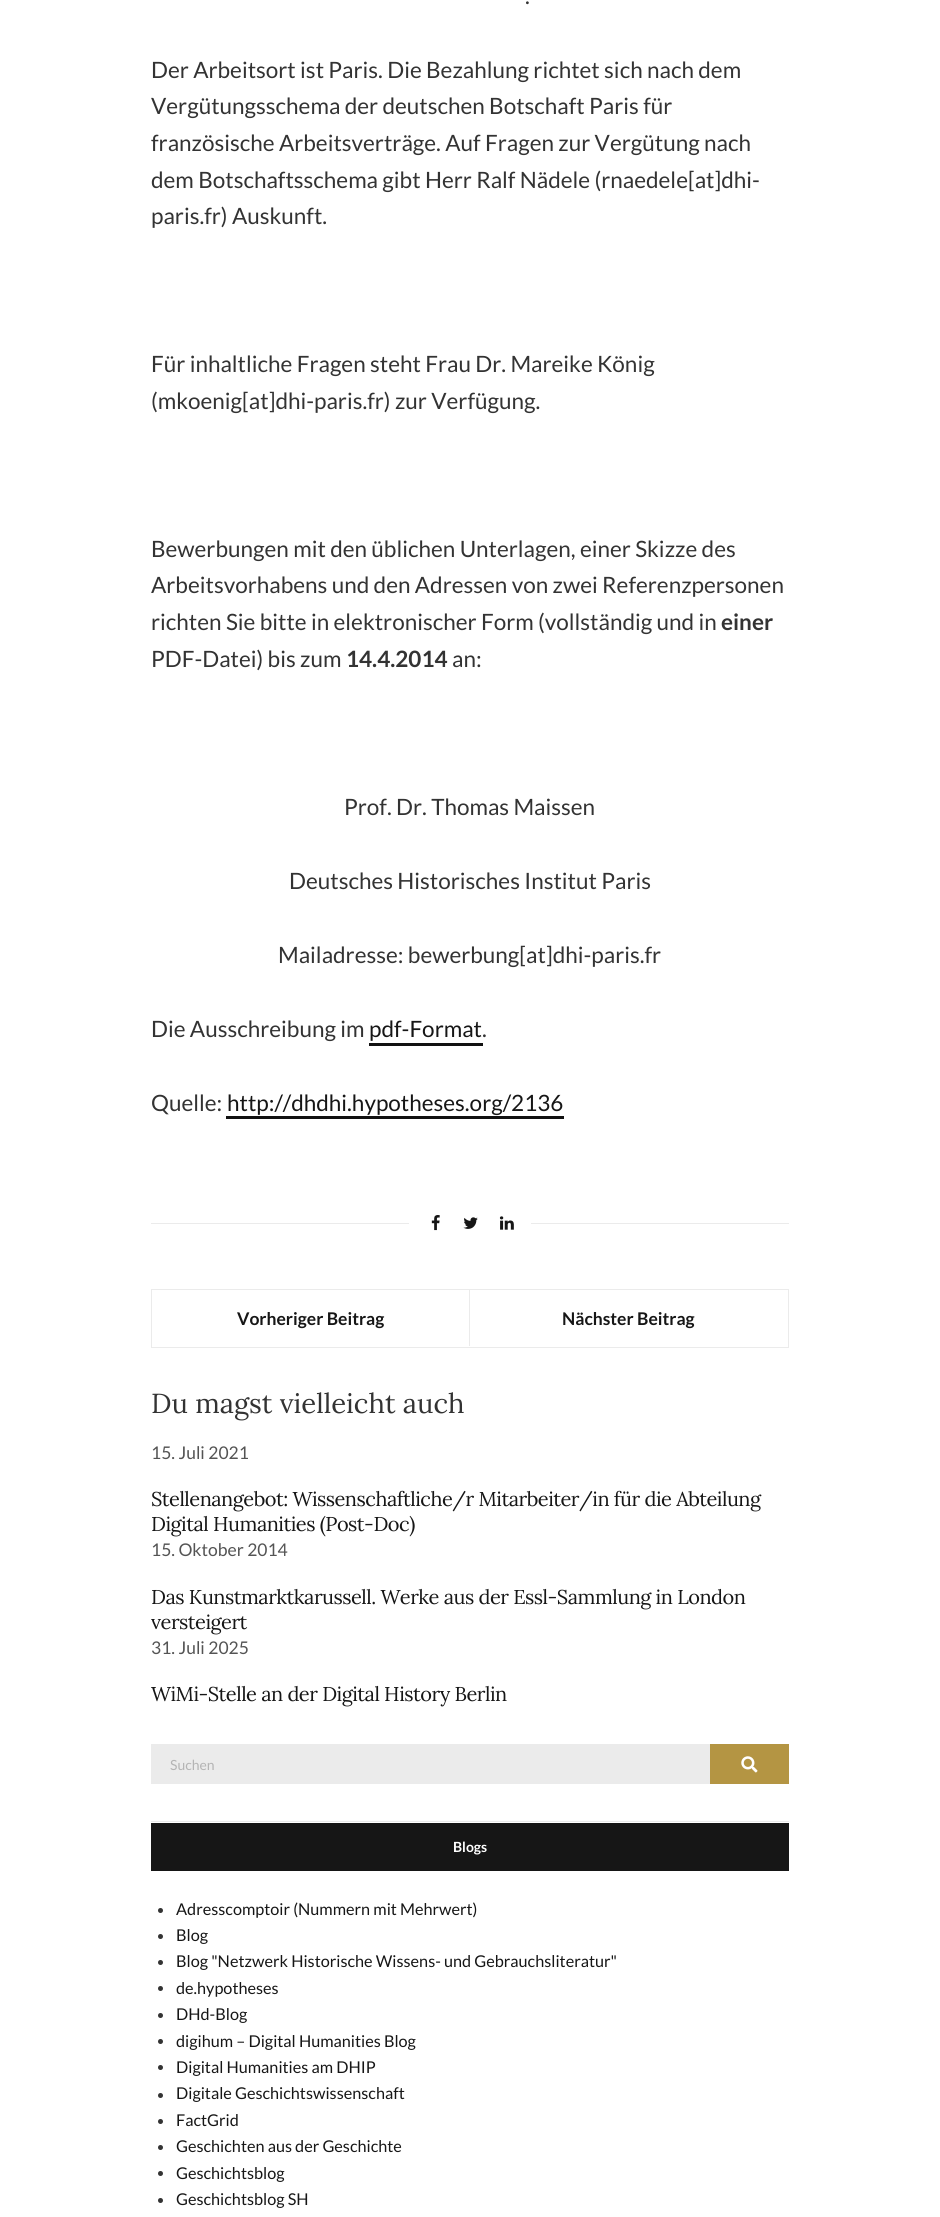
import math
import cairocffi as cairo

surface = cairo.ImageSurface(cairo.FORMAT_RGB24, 940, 2217)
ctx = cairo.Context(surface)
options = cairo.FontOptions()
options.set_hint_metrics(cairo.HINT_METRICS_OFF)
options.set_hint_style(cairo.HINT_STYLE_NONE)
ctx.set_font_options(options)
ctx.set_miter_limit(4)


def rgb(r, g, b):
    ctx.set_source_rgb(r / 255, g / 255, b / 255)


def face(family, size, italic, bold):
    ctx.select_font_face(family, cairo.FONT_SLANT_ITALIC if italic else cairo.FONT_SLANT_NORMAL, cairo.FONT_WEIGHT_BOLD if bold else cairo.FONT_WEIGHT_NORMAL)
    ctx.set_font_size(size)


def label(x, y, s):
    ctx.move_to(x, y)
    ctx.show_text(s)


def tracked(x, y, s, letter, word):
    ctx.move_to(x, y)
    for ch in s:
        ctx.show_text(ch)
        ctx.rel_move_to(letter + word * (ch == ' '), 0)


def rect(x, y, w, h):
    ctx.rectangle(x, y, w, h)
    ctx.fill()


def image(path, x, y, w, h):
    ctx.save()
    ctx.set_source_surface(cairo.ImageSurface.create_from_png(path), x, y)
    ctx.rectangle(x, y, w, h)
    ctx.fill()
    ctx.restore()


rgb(255, 255, 255)
ctx.paint()
face('Lato', 22.5, 0, 0)
rgb(51, 51, 51)
label(525, 4, '.')
label(151, 78, 'Der Arbeitsort ist Paris. Die Bezahlung richtet sich nach dem')
label(151, 114, 'Vergütungsschema der deutschen Botschaft Paris für')
label(151, 151, 'französische Arbeitsverträge. Auf Fragen zur Vergütung nach')
label(151, 188, 'dem Botschaftsschema gibt Herr Ralf Nädele (rnaedele[at]dhi-')
label(151, 224, 'paris.fr) Auskunft.')
label(151, 372, 'Für inhaltliche Fragen steht Frau Dr. Mareike König')
label(151, 409, '(mkoenig[at]dhi-paris.fr) zur Verfügung.')
label(151, 557, 'Bewerbungen mit den üblichen Unterlagen, einer Skizze des')
label(151, 593, 'Arbeitsvorhabens und den Adressen von zwei Referenzpersonen')
label(151, 630, 'richten Sie bitte in elektronischer Form (vollständig und in')
face('Lato', 22.5, 0, 1)
label(721, 630, 'einer')
face('Lato', 22.5, 0, 0)
label(151, 667, 'PDF-Datei) bis zum')
face('Lato', 22.5, 0, 1)
label(346, 667, '14.4.2014')
face('Lato', 22.5, 0, 0)
label(452, 667, 'an:')
label(344, 815, 'Prof. Dr. Thomas Maissen')
label(289, 889, 'Deutsches Historisches Institut Paris')
label(278, 963, 'Mailadresse: bewerbung[at]dhi-paris.fr')
label(151, 1037, 'Die Ausschreibung im')
rgb(22, 22, 22)
label(369, 1037, 'pdf-Format')
rgb(17, 17, 17)
rect(369, 1043, 114, 3)
rgb(51, 51, 51)
label(482, 1037, '.')
label(151, 1111, 'Quelle:')
rgb(22, 22, 22)
label(227, 1111, 'http://dhdhi.hypotheses.org/2136')
rgb(17, 17, 17)
rect(226, 1116, 338, 3)
rgb(235, 235, 235)
rect(151, 1223, 638, 1)
rgb(255, 255, 255)
rect(409, 1223, 122, 1)
image('image0.png', 431, 1215, 9, 16)
image('image1.png', 463, 1217, 15, 12)
image('image2.png', 499, 1216, 15, 14)
ctx.rectangle(151.5, 1289.5, 637, 58)
rgb(235, 235, 235)
ctx.set_line_width(1)
ctx.stroke()
rect(469, 1290, 1, 56)
face('Lato', 17.5, 0, 1)
rgb(22, 22, 22)
label(237, 1325, 'Vorheriger Beitrag')
label(562, 1325, 'Nächster Beitrag')
face('Lora', 27.5, 0, 0)
rgb(51, 51, 51)
label(151, 1413, 'Du magst vielleicht auch')
face('Lato', 17.5, 0, 0)
rgb(84, 84, 84)
label(151, 1459, '15. Juli 2021')
face('Lora', 20, 0, 0)
rgb(22, 22, 22)
tracked(151, 1506, 'Stellenangebot: Wissenschaftliche/r Mitarbeiter/in für die Abteilung', -0.5, 0)
tracked(151, 1531, 'Digital Humanities (Post-Doc)', -0.5, 0)
face('Lato', 17.5, 0, 0)
rgb(84, 84, 84)
label(151, 1556, '15. Oktober 2014')
face('Lora', 20, 0, 0)
rgb(22, 22, 22)
tracked(151, 1604, 'Das Kunstmarktkarussell. Werke aus der Essl-Sammlung in London', -0.5, 0)
tracked(151, 1629, 'versteigert', -0.5, 0)
face('Lato', 17.5, 0, 0)
rgb(84, 84, 84)
label(151, 1654, '31. Juli 2025')
face('Lora', 20, 0, 0)
rgb(22, 22, 22)
tracked(151, 1701, 'WiMi-Stelle an der Digital History Berlin', -0.5, 0)
rgb(235, 235, 235)
rect(151, 1821, 638, 1)
rect(151, 1744, 559, 40)
face('Lato', 14, 0, 0)
rgb(180, 180, 180)
label(170, 1770, 'Suchen')
rgb(180, 149, 67)
rect(710, 1744, 79, 40)
image('image3.png', 741, 1756, 17, 17)
rgb(22, 22, 22)
rect(151, 1823, 638, 48)
face('Lato', 14, 0, 1)
rgb(255, 255, 255)
label(453, 1852, 'Blogs')
rgb(51, 51, 51)
ctx.new_path()
ctx.arc(160.5, 1910.5, 2.5, 0, 2 * math.pi)
ctx.fill()
face('Lato', 16.25, 0, 0)
rgb(22, 22, 22)
label(176, 1915, 'Adresscomptoir (Nummern mit Mehrwert)')
rgb(51, 51, 51)
ctx.new_path()
ctx.arc(160.5, 1936.5, 2.5, 0, 2 * math.pi)
ctx.fill()
rgb(22, 22, 22)
label(176, 1941, 'Blog')
rgb(51, 51, 51)
ctx.new_path()
ctx.arc(160.5, 1962.5, 2.5, 0, 2 * math.pi)
ctx.fill()
rgb(22, 22, 22)
label(176, 1967, 'Blog "Netzwerk Historische Wissens- und Gebrauchsliteratur"')
rgb(51, 51, 51)
ctx.new_path()
ctx.arc(160.5, 1988.5, 2.5, 0, 2 * math.pi)
ctx.fill()
rgb(22, 22, 22)
label(176, 1994, 'de.hypotheses')
rgb(51, 51, 51)
ctx.new_path()
ctx.arc(160.5, 2015.5, 2.5, 0, 2 * math.pi)
ctx.fill()
rgb(22, 22, 22)
label(176, 2020, 'DHd-Blog')
rgb(51, 51, 51)
ctx.new_path()
ctx.arc(160.5, 2041.5, 2.5, 0, 2 * math.pi)
ctx.fill()
rgb(22, 22, 22)
label(176, 2047, 'digihum – Digital Humanities Blog')
rgb(51, 51, 51)
ctx.new_path()
ctx.arc(160.5, 2067.5, 2.5, 0, 2 * math.pi)
ctx.fill()
rgb(22, 22, 22)
label(176, 2073, 'Digital Humanities am DHIP')
rgb(51, 51, 51)
ctx.new_path()
ctx.arc(160.5, 2095.5, 2.5, 0, 2 * math.pi)
ctx.fill()
rgb(22, 22, 22)
label(176, 2099, 'Digitale Geschichtswissenschaft')
rgb(51, 51, 51)
ctx.new_path()
ctx.arc(160.5, 2121.5, 2.5, 0, 2 * math.pi)
ctx.fill()
rgb(22, 22, 22)
label(176, 2126, 'FactGrid')
rgb(51, 51, 51)
ctx.new_path()
ctx.arc(160.5, 2147.5, 2.5, 0, 2 * math.pi)
ctx.fill()
rgb(22, 22, 22)
label(176, 2152, 'Geschichten aus der Geschichte')
rgb(51, 51, 51)
ctx.new_path()
ctx.arc(160.5, 2173.5, 2.5, 0, 2 * math.pi)
ctx.fill()
rgb(22, 22, 22)
label(176, 2179, 'Geschichtsblog')
rgb(51, 51, 51)
ctx.new_path()
ctx.arc(160.5, 2200.5, 2.5, 0, 2 * math.pi)
ctx.fill()
rgb(22, 22, 22)
label(176, 2205, 'Geschichtsblog SH')
surface.write_to_png('render.png')
